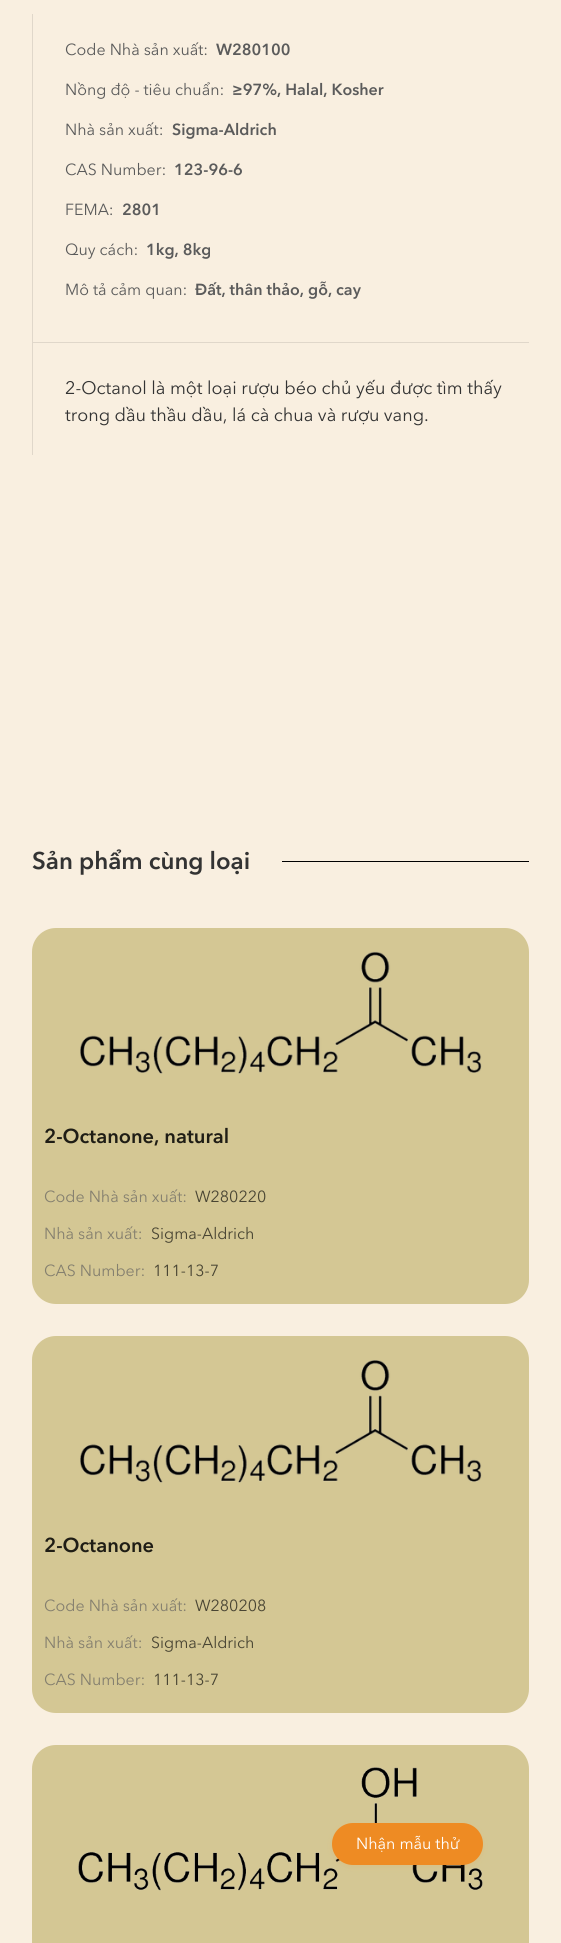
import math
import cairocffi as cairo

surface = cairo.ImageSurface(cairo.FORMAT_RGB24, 561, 1943)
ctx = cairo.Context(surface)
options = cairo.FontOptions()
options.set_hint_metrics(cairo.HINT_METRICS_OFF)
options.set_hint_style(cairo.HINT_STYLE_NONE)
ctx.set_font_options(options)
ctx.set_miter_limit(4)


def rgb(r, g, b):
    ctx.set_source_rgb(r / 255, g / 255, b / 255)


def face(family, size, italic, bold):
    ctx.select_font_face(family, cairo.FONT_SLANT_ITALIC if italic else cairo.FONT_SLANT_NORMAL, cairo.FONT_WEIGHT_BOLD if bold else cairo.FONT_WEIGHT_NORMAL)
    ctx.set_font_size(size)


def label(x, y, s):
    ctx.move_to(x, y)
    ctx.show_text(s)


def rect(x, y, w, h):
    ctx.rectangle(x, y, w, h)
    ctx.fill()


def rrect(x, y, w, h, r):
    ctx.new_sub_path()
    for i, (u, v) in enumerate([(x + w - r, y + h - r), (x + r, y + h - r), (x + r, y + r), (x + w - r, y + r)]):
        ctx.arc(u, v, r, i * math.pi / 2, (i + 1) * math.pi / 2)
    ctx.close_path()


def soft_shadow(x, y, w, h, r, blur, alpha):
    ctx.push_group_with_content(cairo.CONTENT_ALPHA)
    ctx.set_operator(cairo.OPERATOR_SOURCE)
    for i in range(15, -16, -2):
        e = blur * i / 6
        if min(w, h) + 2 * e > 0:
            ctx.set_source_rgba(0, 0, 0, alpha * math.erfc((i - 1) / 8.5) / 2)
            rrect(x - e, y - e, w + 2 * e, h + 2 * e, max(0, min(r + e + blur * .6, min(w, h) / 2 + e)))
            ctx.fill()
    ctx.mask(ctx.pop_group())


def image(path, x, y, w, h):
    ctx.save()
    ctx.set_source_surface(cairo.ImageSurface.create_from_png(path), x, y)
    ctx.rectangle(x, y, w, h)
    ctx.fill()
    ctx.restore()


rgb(249, 239, 224)
ctx.paint()
rgb(224, 215, 202)
rect(32, 14, 1, 441)
face('Avenir Next', 16, 0, 0)
rgb(91, 91, 91)
label(65, 55, 'Code Nhà sản xuất:')
face('Avenir Next SemiBold', 16, 0, 0)
label(216, 55, 'W280100')
face('Avenir Next', 16, 0, 0)
label(65, 95, 'Nồng độ - tiêu chuẩn:')
face('Avenir Next SemiBold', 16, 0, 0)
label(232, 95, '≥97%, Halal, Kosher')
face('Avenir Next', 16, 0, 0)
label(65, 135, 'Nhà sản xuất:')
face('Avenir Next SemiBold', 16, 0, 0)
label(172, 135, 'Sigma-Aldrich')
face('Avenir Next', 16, 0, 0)
label(65, 175, 'CAS Number:')
face('Avenir Next SemiBold', 16, 0, 0)
label(174, 175, '123-96-6')
face('Avenir Next', 16, 0, 0)
label(65, 215, 'FEMA:')
face('Avenir Next SemiBold', 16, 0, 0)
label(122, 215, '2801')
face('Avenir Next', 16, 0, 0)
label(65, 255, 'Quy cách:')
face('Avenir Next SemiBold', 16, 0, 0)
label(146, 255, '1kg, 8kg')
face('Avenir Next', 16, 0, 0)
label(65, 295, 'Mô tả cảm quan:')
face('Avenir Next SemiBold', 16, 0, 0)
label(195, 295, 'Đất, thân thảo, gỗ, cay')
rgb(224, 215, 202)
rect(33, 342, 496, 1)
face('Avenir Next', 18, 0, 0)
rgb(51, 51, 51)
label(65, 394, '2-Octanol là một loại rượu béo chủ yếu được tìm thấy')
label(65, 421, 'trong dầu thầu dầu, lá cà chua và rượu vang.')
rgb(212, 199, 148)
rrect(32, 1745, 497, 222, 24)
ctx.fill()
image('image2.png', 78, 1767, 405, 124)
rgb(238, 139, 35)
soft_shadow(332, 1825, 151, 42, 21, 3, 0.12)
rgb(238, 139, 35)
rrect(332, 1823, 151, 42, 21)
ctx.fill()
face('Avenir Next', 16, 0, 0)
rgb(255, 255, 255)
label(356, 1849, 'Nhận mẫu thử')
face('Avenir Next SemiBold', 24, 0, 0)
rgb(51, 51, 51)
label(32, 869, 'Sản phẩm cùng loại')
rgb(0, 0, 0)
rect(282, 861, 247, 1)
rgb(212, 199, 148)
rrect(32, 928, 497, 376, 24)
ctx.fill()
image('image0.png', 80, 951, 402, 123)
face('Avenir Next SemiBold', 20, 0, 0)
rgb(31, 29, 21)
label(44, 1143, '2-Octanone, natural')
face('Avenir Next', 16, 0, 0)
rgb(133, 128, 111)
label(44, 1202, 'Code Nhà sản xuất:')
rgb(73, 69, 51)
label(195, 1202, 'W280220')
rgb(133, 128, 111)
label(44, 1239, 'Nhà sản xuất:')
rgb(73, 69, 51)
label(151, 1239, 'Sigma-Aldrich')
rgb(133, 128, 111)
label(44, 1276, 'CAS Number:')
rgb(73, 69, 51)
label(153, 1276, '111-13-7')
rgb(212, 199, 148)
rrect(32, 1336, 497, 377, 24)
ctx.fill()
image('image1.png', 80, 1360, 402, 123)
face('Avenir Next SemiBold', 20, 0, 0)
rgb(31, 29, 21)
label(44, 1552, '2-Octanone')
face('Avenir Next', 16, 0, 0)
rgb(133, 128, 111)
label(44, 1611, 'Code Nhà sản xuất:')
rgb(73, 69, 51)
label(195, 1611, 'W280208')
rgb(133, 128, 111)
label(44, 1648, 'Nhà sản xuất:')
rgb(73, 69, 51)
label(151, 1648, 'Sigma-Aldrich')
rgb(133, 128, 111)
label(44, 1685, 'CAS Number:')
rgb(73, 69, 51)
label(153, 1685, '111-13-7')
surface.write_to_png('render.png')
